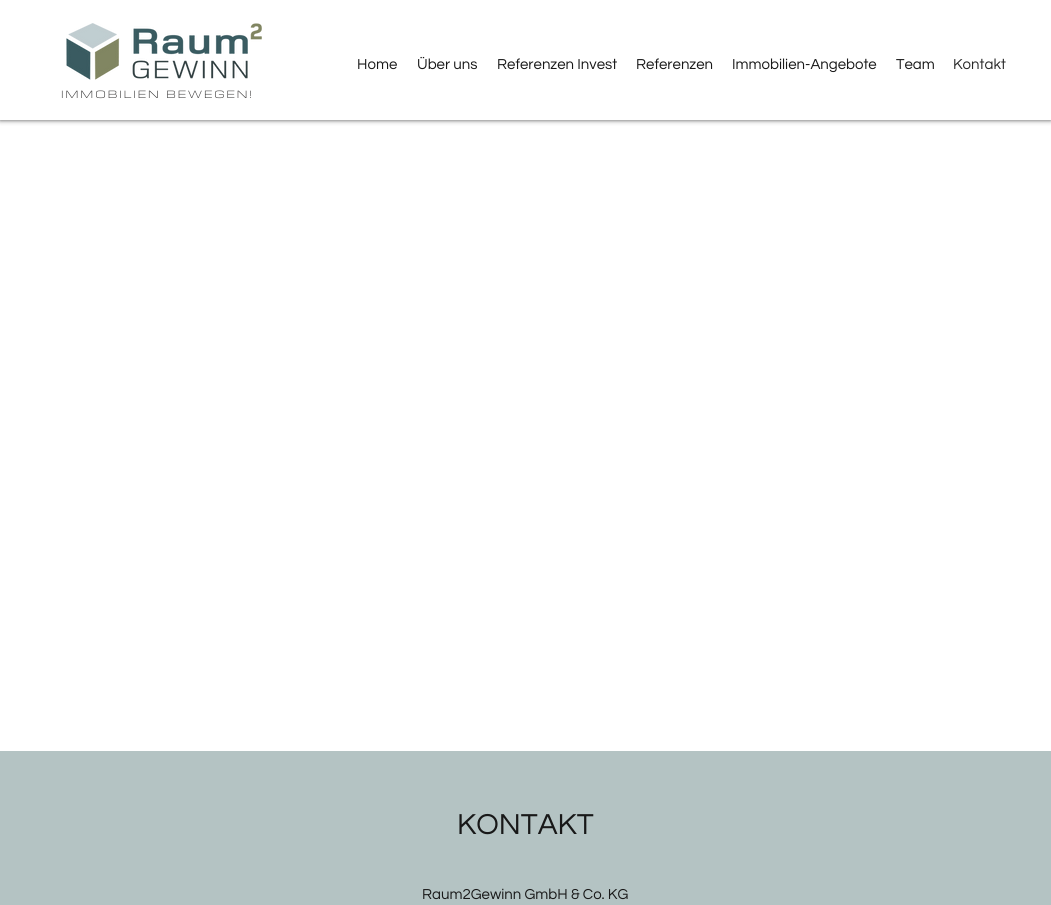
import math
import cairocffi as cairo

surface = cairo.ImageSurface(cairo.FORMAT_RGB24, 1051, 905)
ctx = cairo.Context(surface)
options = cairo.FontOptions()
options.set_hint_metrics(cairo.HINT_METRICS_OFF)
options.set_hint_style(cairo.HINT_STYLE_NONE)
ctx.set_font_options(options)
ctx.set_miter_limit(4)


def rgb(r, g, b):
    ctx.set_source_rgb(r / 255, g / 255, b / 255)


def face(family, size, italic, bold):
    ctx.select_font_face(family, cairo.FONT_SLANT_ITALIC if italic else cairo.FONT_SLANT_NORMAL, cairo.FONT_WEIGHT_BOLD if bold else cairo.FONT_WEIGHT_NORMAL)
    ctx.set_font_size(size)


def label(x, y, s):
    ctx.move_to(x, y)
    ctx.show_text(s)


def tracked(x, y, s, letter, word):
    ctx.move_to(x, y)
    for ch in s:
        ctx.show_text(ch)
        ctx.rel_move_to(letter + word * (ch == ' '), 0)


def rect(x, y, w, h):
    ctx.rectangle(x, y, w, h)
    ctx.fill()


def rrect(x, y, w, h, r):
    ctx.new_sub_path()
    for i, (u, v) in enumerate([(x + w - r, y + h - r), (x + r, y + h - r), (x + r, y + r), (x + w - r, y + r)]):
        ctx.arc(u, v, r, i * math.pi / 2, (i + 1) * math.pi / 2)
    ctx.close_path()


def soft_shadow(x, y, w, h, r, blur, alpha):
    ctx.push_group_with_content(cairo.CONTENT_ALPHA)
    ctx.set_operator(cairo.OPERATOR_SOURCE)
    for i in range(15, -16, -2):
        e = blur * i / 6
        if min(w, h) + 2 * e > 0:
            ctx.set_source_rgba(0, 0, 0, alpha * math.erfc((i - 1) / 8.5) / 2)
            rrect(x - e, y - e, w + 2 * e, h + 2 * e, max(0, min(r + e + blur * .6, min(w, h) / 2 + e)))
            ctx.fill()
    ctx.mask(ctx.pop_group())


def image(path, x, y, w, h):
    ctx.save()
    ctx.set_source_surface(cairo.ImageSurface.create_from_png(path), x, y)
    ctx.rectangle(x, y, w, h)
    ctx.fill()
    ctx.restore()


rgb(180, 195, 195)
ctx.paint()
rgb(255, 255, 255)
rect(0, 120, 1051, 631)
rgb(0, 0, 0)
soft_shadow(0, 0, 1051, 120, 0, 2.5, 0.7)
rgb(255, 255, 255)
rect(0, 0, 1051, 120)
image('image0.png', 66, 23, 196, 57)
face('Questrial', 15, 0, 0)
rgb(24, 24, 24)
label(357, 69, 'Home')
label(417, 69, 'Über uns')
label(497, 69, 'Referenzen Invest')
label(636, 69, 'Referenzen')
label(732, 69, 'Immobilien-Angebote')
label(896, 69, 'Team')
rgb(40, 40, 40)
label(953, 69, 'Kontakt')
face('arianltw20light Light', 13, 0, 0)
rgb(47, 46, 46)
tracked(61, 98, 'IMMOBILIEN BEWEGEN!', 2, 0)
face('Questrial', 30, 0, 0)
rgb(24, 24, 24)
label(457, 834, 'KONTAKT')
face('Questrial', 15, 0, 0)
label(422, 899, 'Raum2Gewinn GmbH & Co. KG')
surface.write_to_png('render.png')
